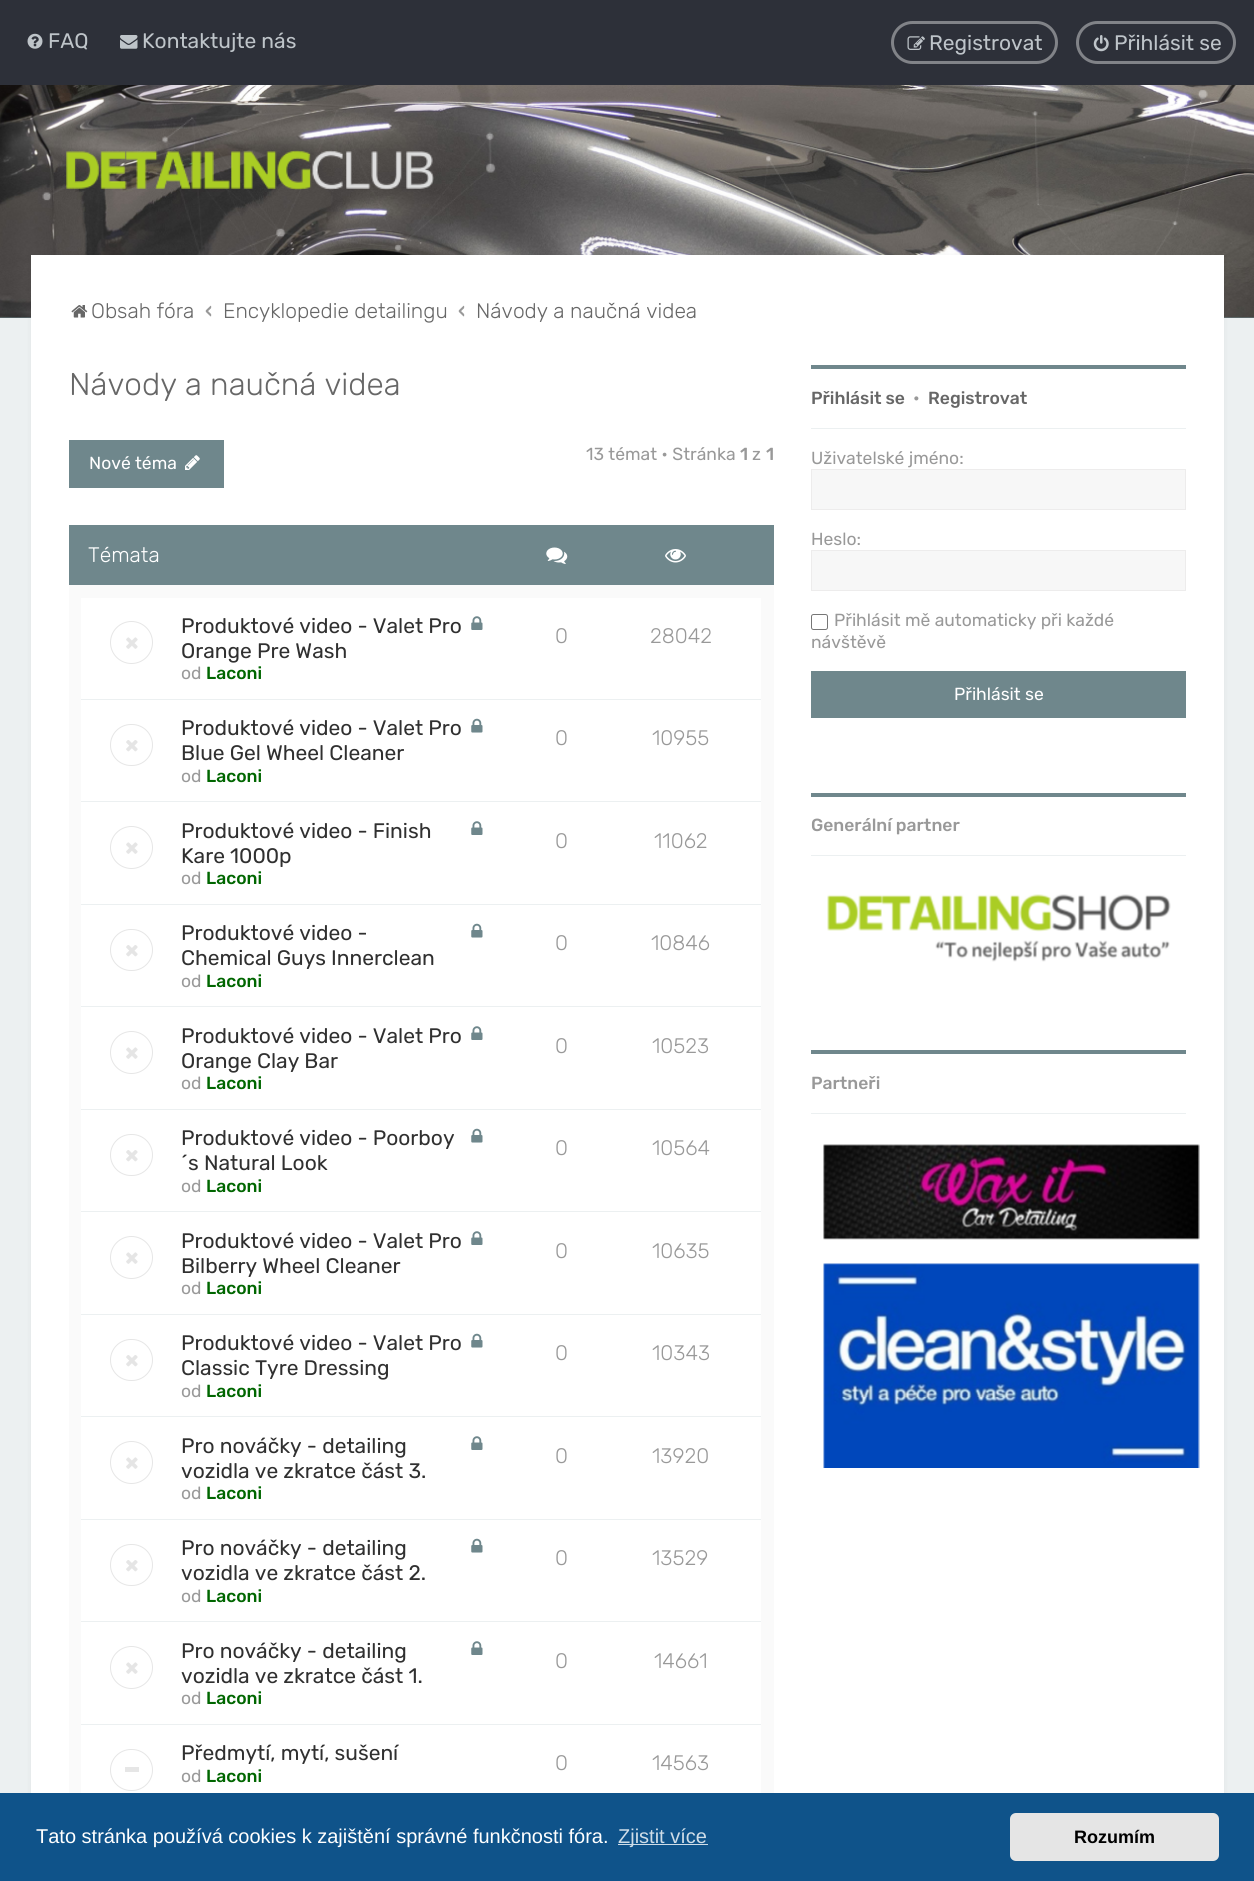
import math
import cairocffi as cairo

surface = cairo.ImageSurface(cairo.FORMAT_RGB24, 1254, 1881)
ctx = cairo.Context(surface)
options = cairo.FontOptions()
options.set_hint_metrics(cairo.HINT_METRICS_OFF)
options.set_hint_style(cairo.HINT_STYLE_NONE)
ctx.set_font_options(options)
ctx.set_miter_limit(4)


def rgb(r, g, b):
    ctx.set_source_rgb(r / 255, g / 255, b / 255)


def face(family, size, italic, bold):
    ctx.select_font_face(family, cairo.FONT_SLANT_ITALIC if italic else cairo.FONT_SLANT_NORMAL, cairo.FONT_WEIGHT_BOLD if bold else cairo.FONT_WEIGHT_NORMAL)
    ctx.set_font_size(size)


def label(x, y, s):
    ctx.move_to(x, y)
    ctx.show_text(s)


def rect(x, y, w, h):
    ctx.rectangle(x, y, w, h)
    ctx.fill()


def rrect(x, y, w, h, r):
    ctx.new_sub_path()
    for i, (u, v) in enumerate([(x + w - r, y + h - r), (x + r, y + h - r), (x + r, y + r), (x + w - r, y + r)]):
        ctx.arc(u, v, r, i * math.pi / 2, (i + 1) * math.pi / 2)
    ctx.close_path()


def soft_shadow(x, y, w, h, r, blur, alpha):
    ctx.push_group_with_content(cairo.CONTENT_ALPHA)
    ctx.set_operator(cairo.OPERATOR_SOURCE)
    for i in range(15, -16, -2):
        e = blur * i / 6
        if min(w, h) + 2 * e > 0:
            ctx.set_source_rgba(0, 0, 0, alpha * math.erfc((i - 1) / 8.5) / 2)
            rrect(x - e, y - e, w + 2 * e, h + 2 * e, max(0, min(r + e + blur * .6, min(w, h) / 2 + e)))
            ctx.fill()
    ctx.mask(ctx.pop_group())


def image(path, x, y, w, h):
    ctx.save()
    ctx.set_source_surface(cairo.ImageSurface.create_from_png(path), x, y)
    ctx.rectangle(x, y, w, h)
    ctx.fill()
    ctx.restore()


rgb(236, 240, 241)
ctx.paint()
rgb(45, 48, 57)
rect(0, 0, 1254, 85)
image('image0.png', 27, 33, 16, 16)
face('Rubik', 21, 0, 0)
rgb(190, 196, 201)
label(48, 48, 'FAQ')
image('image1.png', 120, 35, 18, 14)
label(142, 48, 'Kontaktujte nás')
rrect(892.5, 22.5, 164, 40, 20)
rgb(129, 131, 136)
ctx.set_line_width(3)
ctx.stroke()
image('image2.png', 907, 36, 18, 14)
rgb(190, 196, 201)
label(929, 50, 'Registrovat')
rrect(1077.5, 22.5, 157, 40, 20)
rgb(129, 131, 136)
ctx.stroke()
image('image3.png', 1093, 35, 16, 17)
rgb(190, 196, 201)
label(1114, 50, 'Přihlásit se')
rgb(111, 135, 140)
rect(0, 317, 1254, 1)
image('image4.png', 0, 85, 1254, 233)
image('image5.png', 42, 86, 1166, 169)
image('image6.png', 66, 150, 368, 40)
rgb(0, 0, 0)
soft_shadow(31, 255, 1193, 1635, 0, 3, 0.05)
rgb(255, 255, 255)
rect(31, 255, 1193, 1538)
image('image7.png', 71, 305, 17, 13)
face('Rubik Light', 21, 0, 0)
rgb(103, 103, 103)
label(91, 318, 'Obsah fóra')
face('Rubik Medium', 21, 0, 0)
rgb(153, 153, 153)
label(205, 318, '‹')
face('Rubik Light', 21, 0, 0)
rgb(103, 103, 103)
label(223, 318, 'Encyklopedie detailingu')
face('Rubik Medium', 21, 0, 0)
rgb(153, 153, 153)
label(458, 318, '‹')
face('Rubik Light', 21, 0, 0)
rgb(103, 103, 103)
label(476, 318, 'Návody a naučná videa')
face('Rubik Light', 31.5, 0, 0)
label(69, 395, 'Návody a naučná videa')
face('Rubik', 17.5, 0, 0)
rgb(153, 153, 153)
label(586, 460, '13 témat • Stránka')
face('Rubik Medium', 17.5, 0, 0)
label(740, 460, '1')
face('Rubik', 17.5, 0, 0)
label(752, 460, 'z')
face('Rubik Medium', 17.5, 0, 0)
label(766, 460, '1')
rgb(111, 135, 140)
rect(69, 440, 155, 48)
face('Rubik', 17.5, 0, 0)
rgb(255, 255, 255)
label(89, 469, 'Nové téma')
image('image8.png', 185, 455, 15, 15)
rgb(250, 250, 250)
rect(69, 585, 705, 1208)
rgb(111, 135, 140)
rect(69, 525, 705, 60)
face('Rubik Light', 21, 0, 0)
rgb(255, 255, 255)
label(88, 562, 'Témata')
image('image9.png', 546, 547, 22, 17)
image('image10.png', 665, 549, 21, 14)
rect(81, 598, 680, 101)
rgb(236, 240, 241)
rect(81, 699, 680, 1)
ctx.arc(131.5, 642.5, 21, 0, 2 * math.pi)
rgb(230, 230, 230)
ctx.set_line_width(1)
ctx.stroke()
image('image11.png', 126, 637, 12, 12)
face('Rubik', 21, 0, 0)
rgb(48, 48, 48)
label(181, 633, 'Produktové video - Valet Pro')
image('image12.png', 471, 616, 12, 14)
label(181, 658, 'Orange Pre Wash')
face('Rubik', 17.5, 0, 0)
rgb(153, 153, 153)
label(181, 679, 'od')
face('Rubik Medium', 17.5, 0, 0)
rgb(0, 102, 0)
label(206, 679, 'Laconi')
face('Rubik Light', 21, 0, 0)
rgb(153, 153, 153)
label(555, 643, '0')
label(650, 643, '28042')
rgb(255, 255, 255)
rect(81, 700, 680, 204)
rgb(236, 240, 241)
rect(81, 801, 680, 1)
rrect(110.5, 724.5, 42, 41, 20.5)
rgb(230, 230, 230)
ctx.stroke()
image('image13.png', 126, 740, 12, 12)
face('Rubik', 21, 0, 0)
rgb(48, 48, 48)
label(181, 735, 'Produktové video - Valet Pro')
image('image14.png', 471, 718, 12, 15)
label(181, 760, 'Blue Gel Wheel Cleaner')
face('Rubik', 17.5, 0, 0)
rgb(153, 153, 153)
label(181, 782, 'od')
face('Rubik Medium', 17.5, 0, 0)
rgb(0, 102, 0)
label(206, 782, 'Laconi')
face('Rubik Light', 21, 0, 0)
rgb(153, 153, 153)
label(555, 745, '0')
label(652, 745, '10955')
rgb(236, 240, 241)
rect(81, 904, 680, 1)
ctx.new_path()
ctx.arc(131.5, 847.5, 21, 0, 2 * math.pi)
rgb(230, 230, 230)
ctx.stroke()
image('image11.png', 126, 842, 12, 12)
face('Rubik', 21, 0, 0)
rgb(48, 48, 48)
label(181, 838, 'Produktové video - Finish')
image('image12.png', 471, 821, 12, 14)
label(181, 863, 'Kare 1000p')
face('Rubik', 17.5, 0, 0)
rgb(153, 153, 153)
label(181, 884, 'od')
face('Rubik Medium', 17.5, 0, 0)
rgb(0, 102, 0)
label(206, 884, 'Laconi')
face('Rubik Light', 21, 0, 0)
rgb(153, 153, 153)
label(555, 848, '0')
label(654, 848, '11062')
rgb(255, 255, 255)
rect(81, 905, 680, 204)
rgb(236, 240, 241)
rect(81, 1006, 680, 1)
rrect(110.5, 929.5, 42, 41, 20.5)
rgb(230, 230, 230)
ctx.stroke()
image('image13.png', 126, 945, 12, 12)
face('Rubik', 21, 0, 0)
rgb(48, 48, 48)
label(181, 940, 'Produktové video -')
image('image14.png', 471, 923, 12, 15)
label(181, 965, 'Chemical Guys Innerclean')
face('Rubik', 17.5, 0, 0)
rgb(153, 153, 153)
label(181, 987, 'od')
face('Rubik Medium', 17.5, 0, 0)
rgb(0, 102, 0)
label(206, 987, 'Laconi')
face('Rubik Light', 21, 0, 0)
rgb(153, 153, 153)
label(555, 950, '0')
label(651, 950, '10846')
rgb(236, 240, 241)
rect(81, 1109, 680, 1)
ctx.new_path()
ctx.arc(131.5, 1052.5, 21, 0, 2 * math.pi)
rgb(230, 230, 230)
ctx.stroke()
image('image11.png', 126, 1047, 12, 12)
face('Rubik', 21, 0, 0)
rgb(48, 48, 48)
label(181, 1043, 'Produktové video - Valet Pro')
image('image12.png', 471, 1026, 12, 14)
label(181, 1068, 'Orange Clay Bar')
face('Rubik', 17.5, 0, 0)
rgb(153, 153, 153)
label(181, 1089, 'od')
face('Rubik Medium', 17.5, 0, 0)
rgb(0, 102, 0)
label(206, 1089, 'Laconi')
face('Rubik Light', 21, 0, 0)
rgb(153, 153, 153)
label(555, 1053, '0')
label(652, 1053, '10523')
rgb(255, 255, 255)
rect(81, 1110, 680, 204)
rgb(236, 240, 241)
rect(81, 1211, 680, 1)
rrect(110.5, 1134.5, 42, 41, 20.5)
rgb(230, 230, 230)
ctx.stroke()
image('image13.png', 126, 1150, 12, 12)
face('Rubik', 21, 0, 0)
rgb(48, 48, 48)
label(181, 1145, 'Produktové video - Poorboy')
image('image14.png', 471, 1128, 12, 15)
label(181, 1170, '´s Natural Look')
face('Rubik', 17.5, 0, 0)
rgb(153, 153, 153)
label(181, 1192, 'od')
face('Rubik Medium', 17.5, 0, 0)
rgb(0, 102, 0)
label(206, 1192, 'Laconi')
face('Rubik Light', 21, 0, 0)
rgb(153, 153, 153)
label(555, 1155, '0')
label(652, 1155, '10564')
rgb(236, 240, 241)
rect(81, 1314, 680, 1)
ctx.new_path()
ctx.arc(131.5, 1257.5, 21, 0, 2 * math.pi)
rgb(230, 230, 230)
ctx.stroke()
image('image11.png', 126, 1252, 12, 12)
face('Rubik', 21, 0, 0)
rgb(48, 48, 48)
label(181, 1248, 'Produktové video - Valet Pro')
image('image12.png', 471, 1231, 12, 14)
label(181, 1273, 'Bilberry Wheel Cleaner')
face('Rubik', 17.5, 0, 0)
rgb(153, 153, 153)
label(181, 1294, 'od')
face('Rubik Medium', 17.5, 0, 0)
rgb(0, 102, 0)
label(206, 1294, 'Laconi')
face('Rubik Light', 21, 0, 0)
rgb(153, 153, 153)
label(555, 1258, '0')
label(652, 1258, '10635')
rgb(255, 255, 255)
rect(81, 1315, 680, 204)
rgb(236, 240, 241)
rect(81, 1416, 680, 1)
rrect(110.5, 1339.5, 42, 41, 20.5)
rgb(230, 230, 230)
ctx.stroke()
image('image13.png', 126, 1355, 12, 12)
face('Rubik', 21, 0, 0)
rgb(48, 48, 48)
label(181, 1350, 'Produktové video - Valet Pro')
image('image14.png', 471, 1333, 12, 15)
label(181, 1375, 'Classic Tyre Dressing')
face('Rubik', 17.5, 0, 0)
rgb(153, 153, 153)
label(181, 1397, 'od')
face('Rubik Medium', 17.5, 0, 0)
rgb(0, 102, 0)
label(206, 1397, 'Laconi')
face('Rubik Light', 21, 0, 0)
rgb(153, 153, 153)
label(555, 1360, '0')
label(652, 1360, '10343')
rgb(236, 240, 241)
rect(81, 1519, 680, 1)
ctx.new_path()
ctx.arc(131.5, 1462.5, 21, 0, 2 * math.pi)
rgb(230, 230, 230)
ctx.stroke()
image('image11.png', 126, 1457, 12, 12)
face('Rubik', 21, 0, 0)
rgb(48, 48, 48)
label(181, 1453, 'Pro nováčky - detailing')
image('image12.png', 471, 1436, 12, 14)
label(181, 1478, 'vozidla ve zkratce část 3.')
face('Rubik', 17.5, 0, 0)
rgb(153, 153, 153)
label(181, 1499, 'od')
face('Rubik Medium', 17.5, 0, 0)
rgb(0, 102, 0)
label(206, 1499, 'Laconi')
face('Rubik Light', 21, 0, 0)
rgb(153, 153, 153)
label(555, 1463, '0')
label(652, 1463, '13920')
rgb(255, 255, 255)
rect(81, 1520, 680, 204)
rgb(236, 240, 241)
rect(81, 1621, 680, 1)
rrect(110.5, 1544.5, 42, 41, 20.5)
rgb(230, 230, 230)
ctx.stroke()
image('image13.png', 126, 1560, 12, 12)
face('Rubik', 21, 0, 0)
rgb(48, 48, 48)
label(181, 1555, 'Pro nováčky - detailing')
image('image14.png', 471, 1538, 12, 15)
label(181, 1580, 'vozidla ve zkratce část 2.')
face('Rubik', 17.5, 0, 0)
rgb(153, 153, 153)
label(181, 1602, 'od')
face('Rubik Medium', 17.5, 0, 0)
rgb(0, 102, 0)
label(206, 1602, 'Laconi')
face('Rubik Light', 21, 0, 0)
rgb(153, 153, 153)
label(555, 1565, '0')
label(652, 1565, '13529')
rgb(236, 240, 241)
rect(81, 1724, 680, 1)
ctx.new_path()
ctx.arc(131.5, 1667.5, 21, 0, 2 * math.pi)
rgb(230, 230, 230)
ctx.stroke()
image('image11.png', 126, 1662, 12, 12)
face('Rubik', 21, 0, 0)
rgb(48, 48, 48)
label(181, 1658, 'Pro nováčky - detailing')
image('image12.png', 471, 1641, 12, 14)
label(181, 1683, 'vozidla ve zkratce část 1.')
face('Rubik', 17.5, 0, 0)
rgb(153, 153, 153)
label(181, 1704, 'od')
face('Rubik Medium', 17.5, 0, 0)
rgb(0, 102, 0)
label(206, 1704, 'Laconi')
face('Rubik Light', 21, 0, 0)
rgb(153, 153, 153)
label(555, 1668, '0')
label(654, 1668, '14661')
rgb(255, 255, 255)
rect(81, 1725, 680, 68)
rrect(110.5, 1749.5, 42, 41, 20.5)
rgb(230, 230, 230)
ctx.stroke()
rect(125, 1767, 14, 5)
face('Rubik', 21, 0, 0)
rgb(48, 48, 48)
label(181, 1760, 'Předmytí, mytí, sušení')
face('Rubik', 17.5, 0, 0)
rgb(153, 153, 153)
label(181, 1782, 'od')
face('Rubik Medium', 17.5, 0, 0)
rgb(0, 102, 0)
label(206, 1782, 'Laconi')
face('Rubik Light', 21, 0, 0)
rgb(153, 153, 153)
label(555, 1770, '0')
label(652, 1770, '14563')
rgb(111, 135, 140)
rect(811, 365, 375, 4)
face('Rubik Medium', 17.5, 0, 0)
rgb(103, 103, 103)
label(811, 404, 'Přihlásit se')
rgb(153, 153, 153)
label(913, 404, '•')
rgb(103, 103, 103)
label(928, 404, 'Registrovat')
rgb(236, 240, 241)
rect(811, 428, 375, 1)
face('Rubik', 17.5, 0, 0)
rgb(153, 153, 153)
label(811, 464, 'Uživatelské jméno:')
rgb(247, 247, 247)
ctx.rectangle(811.5, 469.5, 374, 40)
ctx.fill_preserve()
rgb(237, 236, 236)
ctx.stroke()
rgb(153, 153, 153)
label(811, 545, 'Heslo:')
rgb(247, 247, 247)
ctx.rectangle(811.5, 550.5, 374, 40)
ctx.fill_preserve()
rgb(237, 236, 236)
ctx.stroke()
rrect(811.5, 614.5, 16, 15, 2)
rgb(118, 118, 118)
ctx.stroke()
rgb(153, 153, 153)
label(834, 626, 'Přihlásit mě automaticky při každé')
label(811, 648, 'návštěvě')
rgb(111, 135, 140)
rect(811, 671, 375, 47)
rgb(255, 255, 255)
label(954, 700, 'Přihlásit se')
rgb(111, 135, 140)
rect(811, 793, 375, 4)
face('Rubik Medium', 17.5, 0, 0)
rgb(153, 153, 153)
label(811, 831, 'Generální partner')
rgb(236, 240, 241)
rect(811, 855, 375, 1)
image('image15.png', 827, 894, 344, 68)
rgb(111, 135, 140)
rect(811, 1050, 375, 4)
rgb(153, 153, 153)
label(811, 1089, 'Partneři')
rgb(236, 240, 241)
rect(811, 1113, 375, 1)
image('image16.png', 823, 1144, 377, 96)
image('image17.png', 823, 1263, 377, 205)
rgb(15, 83, 138)
rect(0, 1793, 1254, 88)
face('Liberation Sans', 20, 0, 0)
rgb(255, 255, 255)
label(36, 1843, 'Tato stránka používá cookies k zajištění správné funkčnosti fóra.')
rgb(207, 221, 232)
rect(618, 1844, 90, 1)
label(618, 1843, 'Zjistit více')
rgb(229, 229, 229)
rrect(1010, 1813, 209, 48, 6)
ctx.fill()
face('Liberation Sans', 18, 0, 1)
rgb(0, 0, 0)
label(1074, 1843, 'Rozumím')
surface.write_to_png('render.png')
